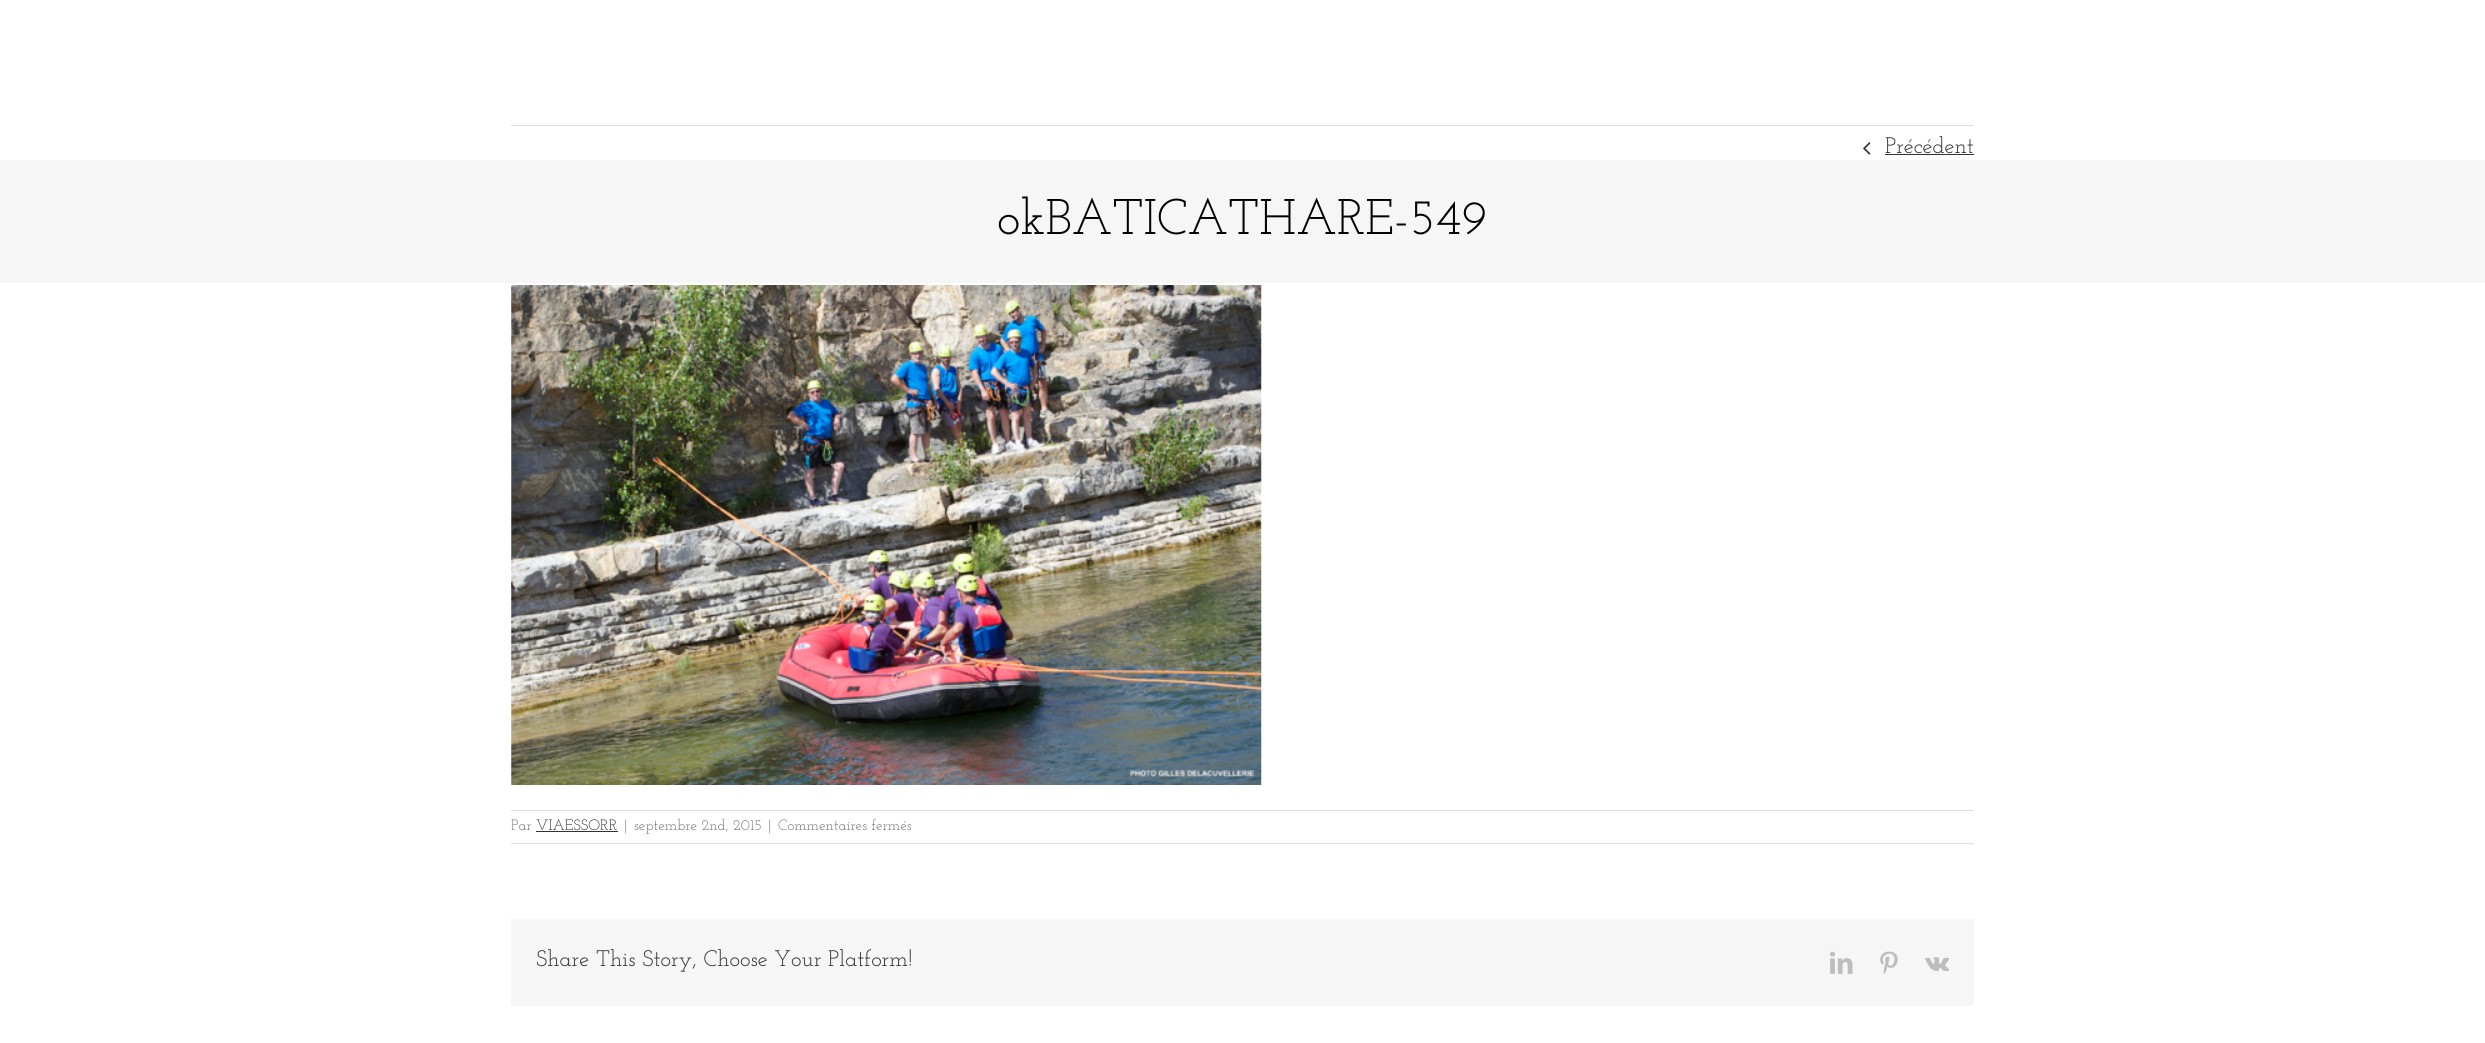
import math
import cairocffi as cairo

surface = cairo.ImageSurface(cairo.FORMAT_RGB24, 2485, 1043)
ctx = cairo.Context(surface)
options = cairo.FontOptions()
options.set_hint_metrics(cairo.HINT_METRICS_OFF)
options.set_hint_style(cairo.HINT_STYLE_NONE)
ctx.set_font_options(options)
ctx.set_miter_limit(4)


def rgb(r, g, b):
    ctx.set_source_rgb(r / 255, g / 255, b / 255)


def face(family, size, italic, bold):
    ctx.select_font_face(family, cairo.FONT_SLANT_ITALIC if italic else cairo.FONT_SLANT_NORMAL, cairo.FONT_WEIGHT_BOLD if bold else cairo.FONT_WEIGHT_NORMAL)
    ctx.set_font_size(size)


def label(x, y, s):
    ctx.move_to(x, y)
    ctx.show_text(s)


def rect(x, y, w, h):
    ctx.rectangle(x, y, w, h)
    ctx.fill()


def image(path, x, y, w, h):
    ctx.save()
    ctx.set_source_surface(cairo.ImageSurface.create_from_png(path), x, y)
    ctx.rectangle(x, y, w, h)
    ctx.fill()
    ctx.restore()


rgb(255, 255, 255)
ctx.paint()
rgb(224, 222, 222)
rect(511, 125, 1463, 1)
image('image0.png', 1863, 142, 8, 13)
face('Josefin Slab', 22.5, 0, 0)
rgb(51, 51, 51)
label(1885, 153, 'Précédent')
rect(1885, 154, 89, 1)
image('image1.png', 511, 285, 751, 500)
rgb(224, 222, 222)
rect(511, 810, 1463, 1)
rect(511, 843, 1463, 1)
face('Josefin Slab', 15, 0, 0)
rgb(116, 116, 116)
label(511, 830, 'Par')
rgb(51, 51, 51)
label(536, 830, 'VIAESSORR')
rect(536, 831, 82, 1)
rgb(116, 116, 116)
label(624, 830, '|')
label(634, 830, 'septembre 2nd, 2015')
label(768, 830, '|')
label(778, 830, 'Commentaires fermés')
rgb(246, 246, 246)
rect(511, 919, 1463, 87)
face('Josefin Slab', 22.5, 0, 0)
rgb(51, 51, 51)
label(536, 966, 'Share This Story, Choose Your Platform!')
image('image2.png', 1830, 951, 23, 23)
image('image3.png', 1880, 951, 18, 23)
image('image4.png', 1925, 957, 24, 14)
rgb(246, 246, 246)
rect(0, 160, 2485, 123)
face('Josefin Slab', 50, 0, 0)
rgb(0, 0, 0)
label(997, 234, 'okBATICATHARE-549')
surface.write_to_png('render.png')
